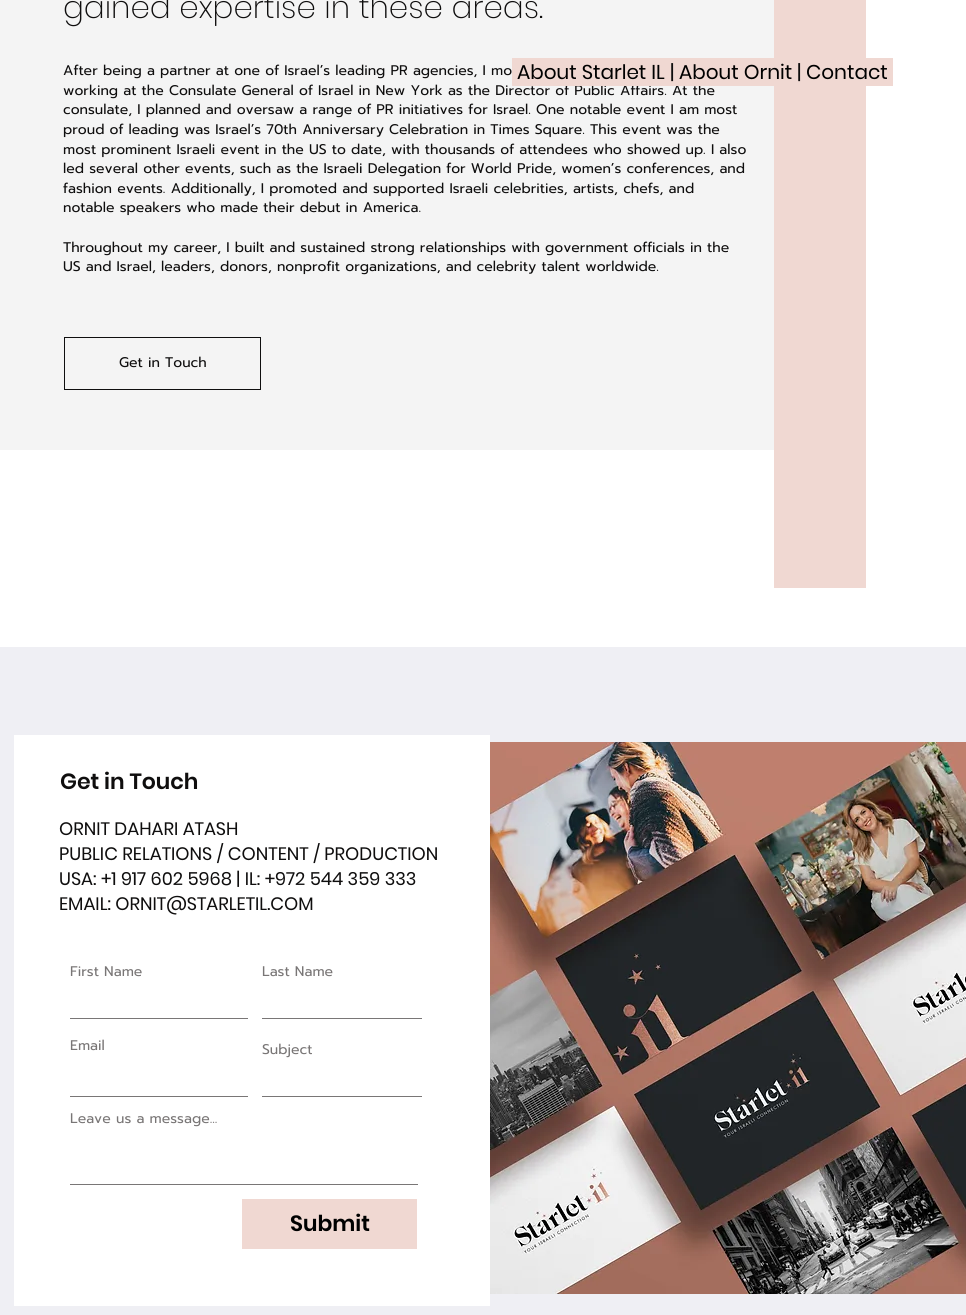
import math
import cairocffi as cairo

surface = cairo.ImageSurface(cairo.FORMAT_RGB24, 966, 1315)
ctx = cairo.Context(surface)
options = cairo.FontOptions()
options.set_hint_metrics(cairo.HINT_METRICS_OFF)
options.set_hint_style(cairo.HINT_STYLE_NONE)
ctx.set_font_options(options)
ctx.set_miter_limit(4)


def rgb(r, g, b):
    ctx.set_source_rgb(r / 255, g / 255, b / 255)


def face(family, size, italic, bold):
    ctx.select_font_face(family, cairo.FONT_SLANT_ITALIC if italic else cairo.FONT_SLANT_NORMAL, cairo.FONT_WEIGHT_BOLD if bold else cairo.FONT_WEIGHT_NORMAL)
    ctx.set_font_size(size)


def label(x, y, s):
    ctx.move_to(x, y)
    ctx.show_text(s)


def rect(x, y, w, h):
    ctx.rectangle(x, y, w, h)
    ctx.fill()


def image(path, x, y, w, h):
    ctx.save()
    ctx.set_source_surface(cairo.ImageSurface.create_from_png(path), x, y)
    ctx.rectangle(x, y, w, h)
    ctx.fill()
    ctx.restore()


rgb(255, 255, 255)
ctx.paint()
rgb(244, 244, 244)
rect(0, 0, 774, 450)
face('Poppins ExtraLight', 31, 0, 0)
rgb(15, 14, 14)
label(63, 18, 'gained expertise in these areas.')
face('Prompt', 14, 0, 0)
label(63, 75, 'After being a partner at one of Israel’s leading PR agencies, I mo')
label(63, 95, 'working at the Consulate General of Israel in New York as the Director of Public Affairs. At the')
label(63, 114, 'consulate, I planned and oversaw a range of PR initiatives for Israel. One notable event I am most')
label(63, 134, 'proud of leading was Israel’s 70th Anniversary Celebration in Times Square. This event was the')
label(63, 154, 'most prominent Israeli event in the US to date, with thousands of attendees who showed up. I also')
label(63, 173, 'led several other events, such as the Israeli Delegation for World Pride, women’s conferences, and')
label(63, 193, 'fashion events. Additionally, I promoted and supported Israeli celebrities, artists, chefs, and')
label(63, 212, 'notable speakers who made their debut in America.')
label(63, 252, 'Throughout my career, I built and sustained strong relationships with government officials in the')
label(63, 271, 'US and Israel, leaders, donors, nonprofit organizations, and celebrity talent worldwide.')
ctx.rectangle(64.5, 337.5, 196, 52)
ctx.set_line_width(1)
ctx.stroke()
label(119, 367, 'Get in Touch')
rgb(240, 216, 210)
rect(774, 0, 92, 588)
rgb(239, 239, 244)
rect(0, 647, 966, 668)
rgb(255, 255, 255)
rect(14, 735, 476, 571)
face('Poppins SemiBold', 22, 0, 0)
rgb(15, 14, 14)
label(60, 789, 'Get in Touch')
face('Poppins', 18, 0, 0)
label(59, 835, 'ORNIT DAHARI ATASH')
label(59, 860, 'PUBLIC RELATIONS / CONTENT / PRODUCTION')
label(59, 885, 'USA: +1 917 602 5968 | IL: +972 544 359 333')
label(59, 910, 'EMAIL: ORNIT@STARLETIL.COM')
face('Prompt', 14, 0, 0)
rgb(121, 118, 118)
label(70, 976, 'First Name')
rect(70, 1018, 178, 1)
label(262, 976, 'Last Name')
rect(262, 1018, 160, 1)
label(70, 1050, 'Email')
rect(70, 1096, 178, 1)
label(262, 1054, 'Subject')
rect(262, 1096, 160, 1)
label(70, 1123, 'Leave us a message...')
rect(70, 1184, 348, 1)
rgb(240, 216, 210)
rect(242, 1199, 175, 50)
face('Poppins SemiBold', 22, 0, 0)
rgb(0, 0, 0)
label(290, 1231, 'Submit')
image('image0.png', 490, 742, 476, 552)
rgb(240, 216, 210)
rect(512, 58, 262, 28)
face('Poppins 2', 20, 0, 0)
rgb(0, 0, 0)
label(517, 79, 'About Starlet IL')
rgb(15, 14, 14)
label(670, 79, '|')
rgb(0, 0, 0)
label(679, 79, 'About Ornit')
rgb(15, 14, 14)
label(797, 79, '|')
rgb(240, 216, 210)
rect(866, 58, 27, 28)
rgb(0, 0, 0)
label(806, 79, 'Contact')
surface.write_to_png('render.png')
